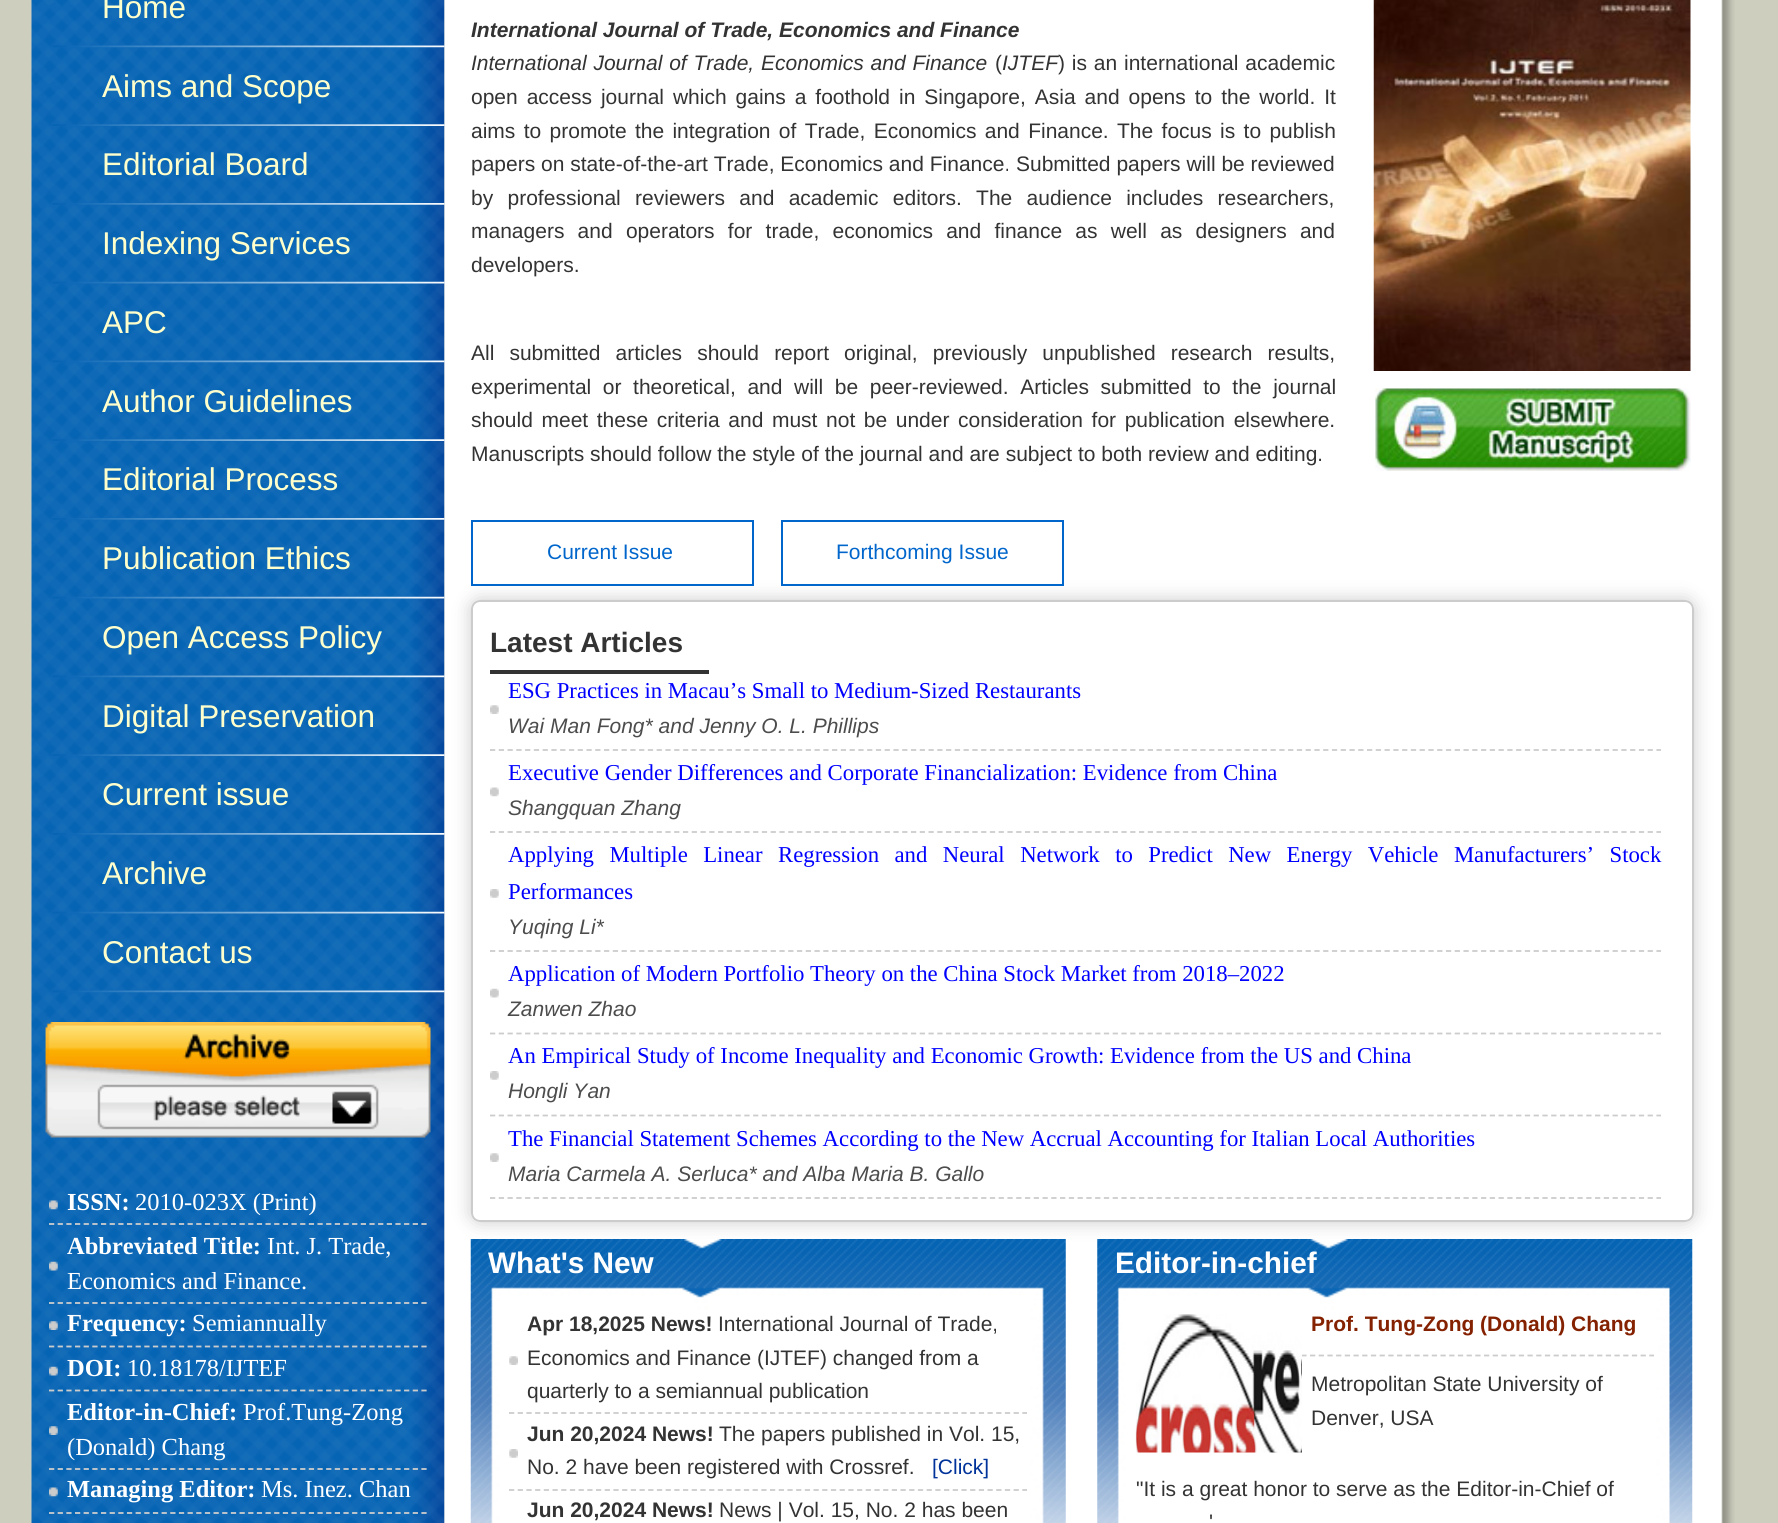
import math
import cairocffi as cairo

surface = cairo.ImageSurface(cairo.FORMAT_RGB24, 1778, 1523)
ctx = cairo.Context(surface)
options = cairo.FontOptions()
options.set_hint_metrics(cairo.HINT_METRICS_OFF)
options.set_hint_style(cairo.HINT_STYLE_NONE)
ctx.set_font_options(options)
ctx.set_miter_limit(4)


def rgb(r, g, b):
    ctx.set_source_rgb(r / 255, g / 255, b / 255)


def face(family, size, italic, bold):
    ctx.select_font_face(family, cairo.FONT_SLANT_ITALIC if italic else cairo.FONT_SLANT_NORMAL, cairo.FONT_WEIGHT_BOLD if bold else cairo.FONT_WEIGHT_NORMAL)
    ctx.set_font_size(size)


def label(x, y, s):
    ctx.move_to(x, y)
    ctx.show_text(s)


def tracked(x, y, s, letter, word):
    ctx.move_to(x, y)
    for ch in s:
        ctx.show_text(ch)
        ctx.rel_move_to(letter + word * (ch == ' '), 0)


def rect(x, y, w, h):
    ctx.rectangle(x, y, w, h)
    ctx.fill()


def rrect(x, y, w, h, r):
    ctx.new_sub_path()
    for i, (u, v) in enumerate([(x + w - r, y + h - r), (x + r, y + h - r), (x + r, y + r), (x + w - r, y + r)]):
        ctx.arc(u, v, r, i * math.pi / 2, (i + 1) * math.pi / 2)
    ctx.close_path()


def soft_shadow(x, y, w, h, r, blur, alpha):
    ctx.push_group_with_content(cairo.CONTENT_ALPHA)
    ctx.set_operator(cairo.OPERATOR_SOURCE)
    for i in range(15, -16, -2):
        e = blur * i / 6
        if min(w, h) + 2 * e > 0:
            ctx.set_source_rgba(0, 0, 0, alpha * math.erfc((i - 1) / 8.5) / 2)
            rrect(x - e, y - e, w + 2 * e, h + 2 * e, max(0, min(r + e + blur * .6, min(w, h) / 2 + e)))
            ctx.fill()
    ctx.mask(ctx.pop_group())


def image(path, x, y, w, h):
    ctx.save()
    ctx.set_source_surface(cairo.ImageSurface.create_from_png(path), x, y)
    ctx.rectangle(x, y, w, h)
    ctx.fill()
    ctx.restore()


rgb(206, 206, 191)
ctx.paint()
image('image0.png', 31, 0, 414, 1523)
image('image16.png', 444, 0, 1291, 1523)
image('image1.png', 52, 45, 393, 3)
face('Liberation Sans', 31.5, 0, 0)
rgb(255, 255, 204)
label(102, 18, 'Home')
image('image2.png', 52, 124, 393, 2)
label(102, 97, 'Aims and Scope')
image('image3.png', 52, 203, 393, 2)
label(102, 175, 'Editorial Board')
image('image4.png', 52, 281, 393, 3)
label(102, 254, 'Indexing Services')
image('image5.png', 52, 360, 393, 3)
label(102, 333, 'APC')
image('image2.png', 52, 439, 393, 2)
label(102, 412, 'Author Guidelines')
image('image3.png', 52, 518, 393, 2)
label(102, 490, 'Editorial Process')
ctx.save()
ctx.set_fill_rule(cairo.FILL_RULE_EVEN_ODD)
ctx.new_path()
ctx.move_to(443, 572)
ctx.line_to(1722, 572)
ctx.line_to(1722, 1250)
ctx.line_to(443, 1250)
ctx.close_path()
ctx.move_to(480, 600)
ctx.line_to(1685, 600)
ctx.curve_to(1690, 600, 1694, 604, 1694, 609)
ctx.line_to(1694, 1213)
ctx.curve_to(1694, 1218, 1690, 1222, 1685, 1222)
ctx.line_to(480, 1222)
ctx.curve_to(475, 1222, 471, 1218, 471, 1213)
ctx.line_to(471, 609)
ctx.curve_to(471, 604, 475, 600, 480, 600)
ctx.close_path()
ctx.clip()
rgb(204, 204, 204)
soft_shadow(471, 600, 1223, 622, 9, 9, 1)
ctx.restore()
image('image6.png', 52, 596, 393, 3)
label(102, 569, 'Publication Ethics')
image('image7.png', 52, 675, 393, 3)
label(102, 648, 'Open Access Policy')
image('image2.png', 52, 754, 393, 2)
label(102, 727, 'Digital Preservation')
image('image3.png', 52, 833, 393, 2)
label(102, 805, 'Current issue')
image('image8.png', 52, 911, 393, 3)
label(102, 884, 'Archive')
image('image7.png', 52, 990, 393, 3)
label(102, 963, 'Contact us')
image('image9.png', 45, 1022, 386, 116)
image('image10.png', 49, 1200, 9, 10)
ctx.new_path()
ctx.move_to(49, 1224)
ctx.line_to(427, 1224)
rgb(204, 204, 204)
ctx.set_line_width(1.8)
ctx.set_dash([5.25, 3.41])
ctx.stroke()
face('Liberation Serif', 24.5, 0, 1)
rgb(255, 255, 255)
label(67, 1210, 'ISSN:')
face('Liberation Serif', 24.5, 0, 0)
label(135, 1210, '2010-023X (Print)')
image('image11.png', 49, 1261, 9, 10)
ctx.new_path()
ctx.move_to(49, 1303)
ctx.line_to(427, 1303)
rgb(204, 204, 204)
ctx.stroke()
face('Liberation Serif', 24.5, 0, 1)
rgb(255, 255, 255)
label(67, 1254, 'Abbreviated Title:')
face('Liberation Serif', 24.5, 0, 0)
label(267, 1254, 'Int. J. Trade,')
label(67, 1289, 'Economics and Finance.')
image('image12.png', 49, 1321, 9, 9)
ctx.new_path()
ctx.move_to(49, 1346.5)
ctx.line_to(427, 1346.5)
rgb(204, 204, 204)
ctx.stroke()
face('Liberation Serif', 24.5, 0, 1)
rgb(255, 255, 255)
label(67, 1331, 'Frequency:')
face('Liberation Serif', 24.5, 0, 0)
label(192, 1331, 'Semiannually')
image('image13.png', 49, 1366, 9, 10)
ctx.new_path()
ctx.move_to(49, 1390.5)
ctx.line_to(427, 1390.5)
rgb(204, 204, 204)
ctx.stroke()
face('Liberation Serif', 24.5, 0, 1)
rgb(255, 255, 255)
label(67, 1376, 'DOI:')
face('Liberation Serif', 24.5, 0, 0)
label(127, 1376, '10.18178/IJTEF')
image('image14.png', 49, 1426, 9, 9)
ctx.new_path()
ctx.move_to(49, 1469)
ctx.line_to(427, 1469)
rgb(204, 204, 204)
ctx.stroke()
face('Liberation Serif', 24.5, 0, 1)
rgb(255, 255, 255)
label(67, 1420, 'Editor-in-Chief:')
face('Liberation Serif', 24.5, 0, 0)
label(243, 1420, 'Prof.Tung-Zong')
label(67, 1455, '(Donald) Chang')
image('image15.png', 49, 1487, 9, 10)
ctx.new_path()
ctx.move_to(49, 1513)
ctx.line_to(427, 1513)
rgb(204, 204, 204)
ctx.stroke()
face('Liberation Serif', 24.5, 0, 1)
rgb(255, 255, 255)
label(67, 1497, 'Managing Editor:')
face('Liberation Serif', 24.5, 0, 0)
label(261, 1497, 'Ms. Inez. Chan')
face('Liberation Sans', 21, 1, 1)
rgb(51, 51, 51)
label(471, 37, 'International Journal of Trade, Economics and Finance')
face('Liberation Sans', 21, 1, 0)
tracked(471, 70, 'International Journal of Trade, Economics and Finance', 0, 1)
face('Liberation Sans', 21, 0, 0)
label(995, 70, '(')
face('Liberation Sans', 21, 1, 0)
label(1002, 70, 'IJTEF')
face('Liberation Sans', 21, 0, 0)
tracked(1058, 70, ') is an international academic', 0, 1)
tracked(471, 104, 'open access journal which gains a foothold in Singapore, Asia and opens to the world. It', 0, 3.1)
tracked(471, 138, 'aims to promote the integration of Trade, Economics and Finance. The focus is to publish', 0, 2.5)
label(471, 171, 'papers on state-of-the-art Trade, Economics and Finance.')
label(1016, 171, 'Submitted papers will be reviewed')
tracked(471, 205, 'by professional reviewers and academic editors. The audience includes researchers,', 0, 8.5)
tracked(471, 238, 'managers and operators for trade, economics and finance as well as designers and', 0, 7.4)
label(471, 272, 'developers.')
tracked(471, 360, 'All submitted articles should report original, previously unpublished research results,', 0, 9.25)
tracked(471, 394, 'experimental or theoretical, and will be peer-reviewed. Articles submitted to the journal', 0, 5.75)
tracked(471, 427, 'should meet these criteria and must not be under consideration for publication elsewhere.', 0, 2.75)
label(471, 461, 'Manuscripts should follow the style of the journal and are subject to both review and editing.')
ctx.rectangle(472, 521, 281, 64)
rgb(0, 102, 204)
ctx.set_line_width(2)
ctx.set_dash([])
ctx.stroke()
label(547, 559, 'Current Issue')
ctx.rectangle(782, 521, 281, 64)
ctx.stroke()
label(836, 559, 'Forthcoming Issue')
image('image17.png', 1373, 0, 318, 371)
image('image18.png', 1375, 388, 316, 83)
rrect(472, 601, 1221, 620, 8)
rgb(204, 204, 204)
ctx.stroke()
rgb(51, 51, 51)
rect(490, 670, 219, 4)
face('Liberation Sans', 28, 0, 1)
label(490, 652, 'Latest Articles')
image('image19.png', 490, 705, 9, 9)
ctx.new_path()
ctx.move_to(490, 750)
ctx.line_to(1661, 750)
rgb(204, 204, 204)
ctx.set_line_width(1.8)
ctx.set_dash([5.25, 3.52])
ctx.stroke()
face('Liberation Serif', 22.75, 0, 0)
rgb(0, 0, 255)
label(508, 698, 'ESG Practices in Macau’s Small to Medium-Sized Restaurants')
face('Liberation Sans', 21, 1, 0)
rgb(76, 76, 76)
label(508, 733, 'Wai Man Fong* and Jenny O. L. Phillips')
image('image20.png', 490, 787, 9, 10)
ctx.new_path()
ctx.move_to(490, 832)
ctx.line_to(1661, 832)
rgb(204, 204, 204)
ctx.stroke()
face('Liberation Serif', 22.75, 0, 0)
rgb(0, 0, 255)
label(508, 780, 'Executive Gender Differences and Corporate Financialization: Evidence from China')
face('Liberation Sans', 21, 1, 0)
rgb(76, 76, 76)
label(508, 815, 'Shangquan Zhang')
image('image21.png', 490, 889, 9, 9)
ctx.new_path()
ctx.move_to(490, 951)
ctx.line_to(1661, 951)
rgb(204, 204, 204)
ctx.stroke()
face('Liberation Serif', 22.75, 0, 0)
rgb(0, 0, 255)
tracked(508, 862, 'Applying Multiple Linear Regression and Neural Network to Predict New Energy Vehicle Manufacturers’ Stock', 0, 9.75)
label(508, 899, 'Performances')
face('Liberation Sans', 21, 1, 0)
rgb(76, 76, 76)
label(508, 934, 'Yuqing Li*')
image('image22.png', 490, 988, 9, 10)
ctx.new_path()
ctx.move_to(490, 1033.5)
ctx.line_to(1661, 1033.5)
rgb(204, 204, 204)
ctx.stroke()
face('Liberation Serif', 22.75, 0, 0)
rgb(0, 0, 255)
label(508, 981, 'Application of Modern Portfolio Theory on the China Stock Market from 2018–2022')
face('Liberation Sans', 21, 1, 0)
rgb(76, 76, 76)
label(508, 1016, 'Zanwen Zhao')
image('image21.png', 490, 1071, 9, 9)
ctx.new_path()
ctx.move_to(490, 1115.5)
ctx.line_to(1661, 1115.5)
rgb(204, 204, 204)
ctx.stroke()
face('Liberation Serif', 22.75, 0, 0)
rgb(0, 0, 255)
label(508, 1063, 'An Empirical Study of Income Inequality and Economic Growth: Evidence from the US and China')
face('Liberation Sans', 21, 1, 0)
rgb(76, 76, 76)
label(508, 1098, 'Hongli Yan')
image('image19.png', 490, 1153, 9, 9)
ctx.new_path()
ctx.move_to(490, 1198)
ctx.line_to(1661, 1198)
rgb(204, 204, 204)
ctx.stroke()
face('Liberation Serif', 22.75, 0, 0)
rgb(0, 0, 255)
label(508, 1146, 'The Financial Statement Schemes According to the New Accrual Accounting for Italian Local Authorities')
face('Liberation Sans', 21, 1, 0)
rgb(76, 76, 76)
label(508, 1181, 'Maria Carmela A. Serluca* and Alba Maria B. Gallo')
image('image23.png', 470, 1239, 596, 284)
face('Liberation Sans', 29.75, 0, 1)
rgb(255, 255, 255)
label(488, 1273, 'What\'s New')
image('image24.png', 509, 1356, 9, 9)
ctx.new_path()
ctx.move_to(509, 1413)
ctx.line_to(1027, 1413)
rgb(204, 204, 204)
ctx.set_dash([5.25, 3.45])
ctx.stroke()
face('Liberation Sans', 21, 0, 1)
rgb(51, 51, 51)
label(527, 1331, 'Apr 18,2025 News!')
face('Liberation Sans', 21, 0, 0)
label(718, 1331, 'International Journal of Trade,')
label(527, 1365, 'Economics and Finance (IJTEF) changed from a')
label(527, 1398, 'quarterly to a semiannual publication')
image('image25.png', 509, 1449, 9, 9)
ctx.new_path()
ctx.move_to(509, 1490)
ctx.line_to(1027, 1490)
rgb(204, 204, 204)
ctx.stroke()
face('Liberation Sans', 21, 0, 1)
rgb(51, 51, 51)
label(527, 1441, 'Jun 20,2024 News!')
face('Liberation Sans', 21, 0, 0)
label(719, 1441, 'The papers published in Vol. 15,')
label(527, 1474, 'No. 2 have been registered with Crossref.')
rgb(0, 51, 153)
label(932, 1474, '[Click]')
face('Liberation Sans', 21, 0, 1)
rgb(51, 51, 51)
label(527, 1517, 'Jun 20,2024 News!')
face('Liberation Sans', 21, 0, 0)
label(719, 1517, 'News | Vol. 15, No. 2 has been')
image('image26.png', 1097, 1239, 596, 284)
face('Liberation Sans', 29.75, 0, 1)
rgb(255, 255, 255)
label(1115, 1273, 'Editor-in-chief')
ctx.new_path()
ctx.move_to(1136, 1355.5)
ctx.line_to(1654, 1355.5)
rgb(204, 204, 204)
ctx.stroke()
image('image27.png', 1135, 1314, 167, 139)
face('Liberation Sans', 21, 0, 1)
rgb(132, 33, 0)
label(1311, 1331, 'Prof. Tung-Zong (Donald) Chang')
face('Liberation Sans', 21, 0, 0)
rgb(51, 51, 51)
label(1311, 1391, 'Metropolitan State University of')
label(1311, 1425, 'Denver, USA')
label(1136, 1496, '"It is a great honor to serve as the Editor-in-Chief of')
label(1209, 1529, '\'')
surface.write_to_png('render.png')
